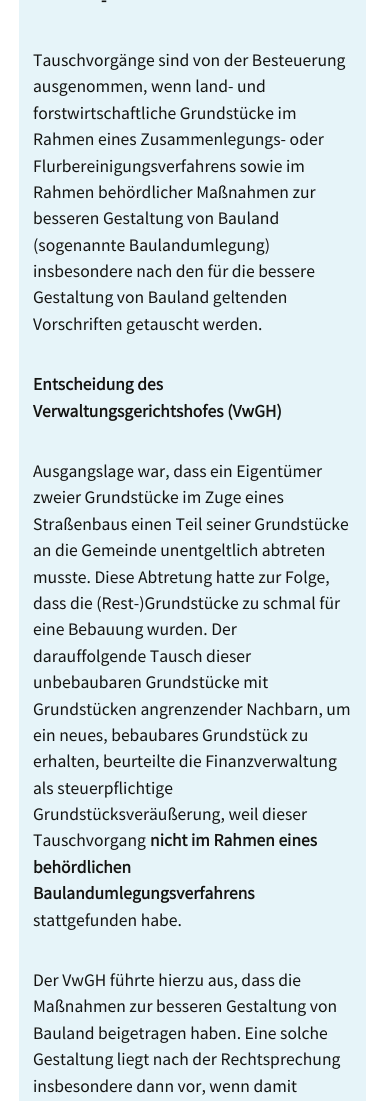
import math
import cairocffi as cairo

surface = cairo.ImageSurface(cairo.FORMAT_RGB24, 385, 1101)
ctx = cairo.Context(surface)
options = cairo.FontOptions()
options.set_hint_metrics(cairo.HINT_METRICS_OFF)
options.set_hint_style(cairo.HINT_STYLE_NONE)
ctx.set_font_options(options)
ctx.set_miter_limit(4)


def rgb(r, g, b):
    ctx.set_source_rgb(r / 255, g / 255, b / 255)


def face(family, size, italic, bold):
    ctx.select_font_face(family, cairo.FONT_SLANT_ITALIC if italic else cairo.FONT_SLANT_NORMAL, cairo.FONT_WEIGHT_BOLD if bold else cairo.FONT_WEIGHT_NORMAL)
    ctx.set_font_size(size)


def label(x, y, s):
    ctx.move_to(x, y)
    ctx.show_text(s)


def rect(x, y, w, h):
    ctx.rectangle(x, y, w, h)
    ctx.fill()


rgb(255, 255, 255)
ctx.paint()
rgb(230, 244, 249)
rect(19, 0, 347, 1101)
face('Source Sans Pro', 17.6, 0, 1)
rgb(20, 20, 18)
label(101, 6, '-')
face('Source Sans Pro', 17.6, 0, 0)
label(33, 66, 'Tauschvorgänge sind von der Besteuerung')
label(33, 92, 'ausgenommen, wenn land- und')
label(33, 119, 'forstwirtschaftliche Grundstücke im')
label(33, 145, 'Rahmen eines Zusammenlegungs- oder')
label(33, 172, 'Flurbereinigungsverfahrens sowie im')
label(33, 198, 'Rahmen behördlicher Maßnahmen zur')
label(33, 224, 'besseren Gestaltung von Bauland')
label(33, 251, '(sogenannte Baulandumlegung)')
label(33, 277, 'insbesondere nach den für die bessere')
label(33, 303, 'Gestaltung von Bauland geltenden')
label(33, 330, 'Vorschriften getauscht werden.')
face('Source Sans Pro', 17.6, 0, 1)
label(33, 390, 'Entscheidung des')
label(33, 417, 'Verwaltungsgerichtshofes (VwGH)')
face('Source Sans Pro', 17.6, 0, 0)
label(33, 477, 'Ausgangslage war, dass ein Eigentümer')
label(33, 503, 'zweier Grundstücke im Zuge eines')
label(33, 530, 'Straßenbaus einen Teil seiner Grundstücke')
label(33, 556, 'an die Gemeinde unentgeltlich abtreten')
label(33, 583, 'musste. Diese Abtretung hatte zur Folge,')
label(33, 609, 'dass die (Rest-)Grundstücke zu schmal für')
label(33, 635, 'eine Bebauung wurden. Der')
label(33, 662, 'darauffolgende Tausch dieser')
label(33, 688, 'unbebaubaren Grundstücke mit')
label(33, 715, 'Grundstücken angrenzender Nachbarn, um')
label(33, 741, 'ein neues, bebaubares Grundstück zu')
label(33, 767, 'erhalten, beurteilte die Finanzverwaltung')
label(33, 794, 'als steuerpflichtige')
label(33, 820, 'Grundstücksveräußerung, weil dieser')
label(33, 846, 'Tauschvorgang')
face('Source Sans Pro', 17.6, 0, 1)
label(150, 846, 'nicht im Rahmen eines')
label(33, 873, 'behördlichen')
label(33, 899, 'Baulandumlegungsverfahrens')
face('Source Sans Pro', 17.6, 0, 0)
label(33, 926, 'stattgefunden habe.')
label(33, 986, 'Der VwGH führte hierzu aus, dass die')
label(33, 1012, 'Maßnahmen zur besseren Gestaltung von')
label(33, 1039, 'Bauland beigetragen haben. Eine solche')
label(33, 1065, 'Gestaltung liegt nach der Rechtsprechung')
label(33, 1092, 'insbesondere dann vor, wenn damit')
surface.write_to_png('render.png')
